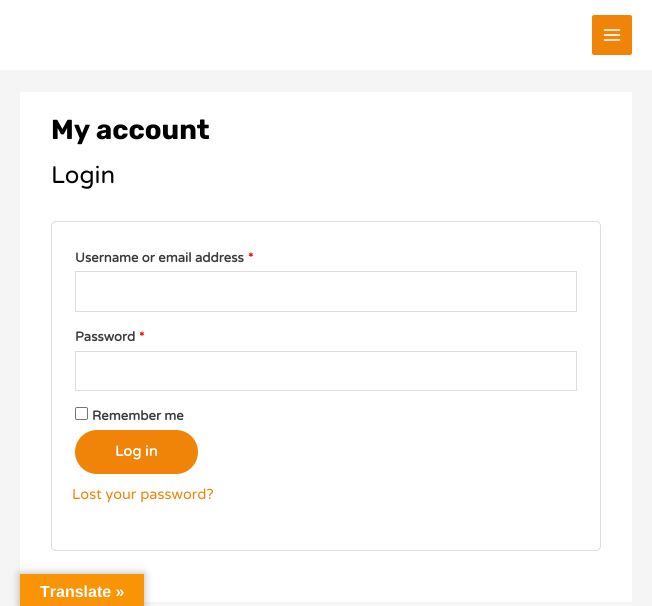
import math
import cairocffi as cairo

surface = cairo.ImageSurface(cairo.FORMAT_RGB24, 652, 606)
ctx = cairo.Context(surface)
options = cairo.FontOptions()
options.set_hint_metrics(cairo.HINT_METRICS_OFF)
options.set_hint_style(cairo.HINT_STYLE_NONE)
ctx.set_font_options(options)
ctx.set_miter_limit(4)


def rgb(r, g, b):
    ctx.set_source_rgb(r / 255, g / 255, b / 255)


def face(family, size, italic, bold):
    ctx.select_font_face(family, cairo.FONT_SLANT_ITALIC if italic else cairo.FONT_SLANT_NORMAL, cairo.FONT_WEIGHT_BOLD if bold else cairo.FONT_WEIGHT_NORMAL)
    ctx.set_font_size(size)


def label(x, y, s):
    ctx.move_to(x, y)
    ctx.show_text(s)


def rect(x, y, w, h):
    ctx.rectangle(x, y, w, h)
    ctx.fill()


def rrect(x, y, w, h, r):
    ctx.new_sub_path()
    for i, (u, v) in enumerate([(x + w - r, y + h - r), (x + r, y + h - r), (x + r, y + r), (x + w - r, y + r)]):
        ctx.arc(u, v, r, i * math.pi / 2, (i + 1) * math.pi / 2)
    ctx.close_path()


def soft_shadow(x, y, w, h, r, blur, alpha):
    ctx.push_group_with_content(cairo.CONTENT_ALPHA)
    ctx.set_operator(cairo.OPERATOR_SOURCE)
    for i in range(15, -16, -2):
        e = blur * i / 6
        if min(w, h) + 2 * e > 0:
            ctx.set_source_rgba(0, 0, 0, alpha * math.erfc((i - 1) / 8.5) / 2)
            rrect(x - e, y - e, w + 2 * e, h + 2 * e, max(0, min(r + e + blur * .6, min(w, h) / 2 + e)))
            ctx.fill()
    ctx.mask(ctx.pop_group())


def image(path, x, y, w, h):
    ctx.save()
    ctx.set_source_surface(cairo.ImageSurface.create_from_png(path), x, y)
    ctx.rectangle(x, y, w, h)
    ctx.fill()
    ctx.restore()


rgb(245, 245, 245)
ctx.paint()
rgb(255, 255, 255)
rect(0, 0, 652, 70)
rgb(239, 132, 9)
rrect(592, 15, 40, 40, 2)
ctx.fill()
image('image0.png', 603, 29, 18, 12)
rgb(255, 255, 255)
rect(20, 92, 612, 510)
face('Rubik Light', 27.5, 0, 0)
rgb(0, 0, 0)
label(51, 139, 'My account')
face('Varela Round', 24, 0, 0)
label(51, 183, 'Login')
rrect(51.5, 221.5, 549, 329, 4.5)
rgb(221, 221, 221)
ctx.set_line_width(1)
ctx.stroke()
face('Varela Round', 13.1, 0, 1)
rgb(58, 58, 58)
label(75, 262, 'Username or email address')
rgb(255, 0, 0)
label(248, 262, '*')
ctx.rectangle(75.5, 271.5, 501, 40)
rgb(221, 221, 221)
ctx.stroke()
rgb(58, 58, 58)
label(75, 341, 'Password')
rgb(255, 0, 0)
label(139, 341, '*')
ctx.rectangle(75.5, 351.5, 501, 39)
rgb(221, 221, 221)
ctx.stroke()
rrect(75.5, 407.5, 12, 12, 1.5)
rgb(118, 118, 118)
ctx.stroke()
rgb(58, 58, 58)
label(92, 420, 'Remember me')
rgb(239, 132, 9)
rrect(75, 430, 123, 44, 22)
ctx.fill()
face('Varela Round', 14.5, 0, 1)
rgb(255, 255, 255)
label(115, 456, 'Log in')
face('Varela Round', 14.5, 0, 0)
rgb(239, 132, 9)
label(72, 499, 'Lost your password?')
rgb(0, 0, 0)
soft_shadow(20, 574, 124, 32, 0, 4.5, 0.3)
rgb(248, 148, 6)
rect(20, 574, 124, 32)
face('Liberation Sans', 16, 0, 1)
rgb(255, 255, 255)
label(40, 597, 'Translate »')
surface.write_to_png('render.png')
